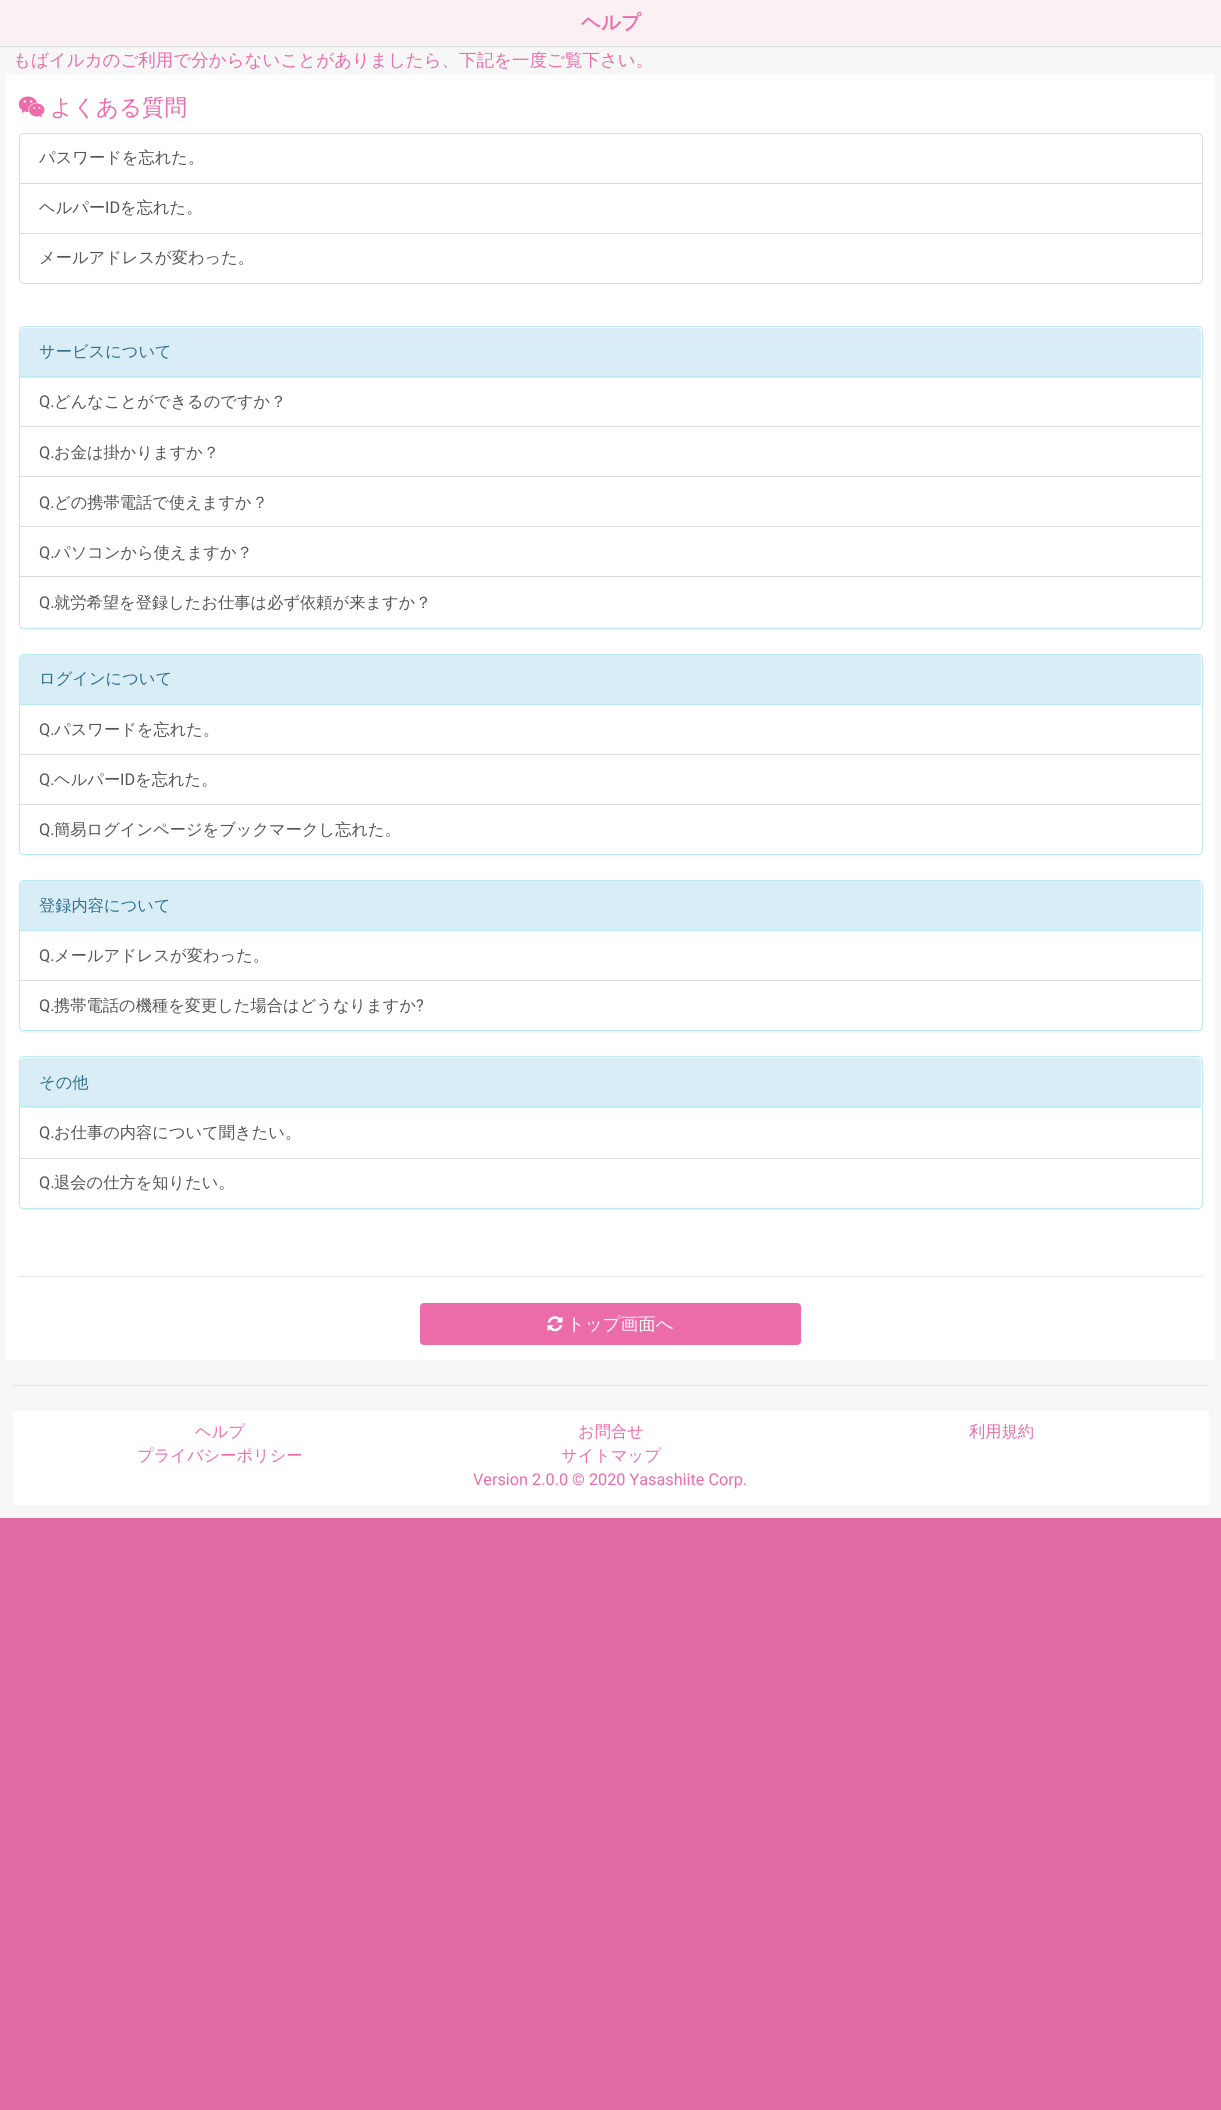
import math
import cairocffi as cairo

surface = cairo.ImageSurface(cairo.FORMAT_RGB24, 1221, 2110)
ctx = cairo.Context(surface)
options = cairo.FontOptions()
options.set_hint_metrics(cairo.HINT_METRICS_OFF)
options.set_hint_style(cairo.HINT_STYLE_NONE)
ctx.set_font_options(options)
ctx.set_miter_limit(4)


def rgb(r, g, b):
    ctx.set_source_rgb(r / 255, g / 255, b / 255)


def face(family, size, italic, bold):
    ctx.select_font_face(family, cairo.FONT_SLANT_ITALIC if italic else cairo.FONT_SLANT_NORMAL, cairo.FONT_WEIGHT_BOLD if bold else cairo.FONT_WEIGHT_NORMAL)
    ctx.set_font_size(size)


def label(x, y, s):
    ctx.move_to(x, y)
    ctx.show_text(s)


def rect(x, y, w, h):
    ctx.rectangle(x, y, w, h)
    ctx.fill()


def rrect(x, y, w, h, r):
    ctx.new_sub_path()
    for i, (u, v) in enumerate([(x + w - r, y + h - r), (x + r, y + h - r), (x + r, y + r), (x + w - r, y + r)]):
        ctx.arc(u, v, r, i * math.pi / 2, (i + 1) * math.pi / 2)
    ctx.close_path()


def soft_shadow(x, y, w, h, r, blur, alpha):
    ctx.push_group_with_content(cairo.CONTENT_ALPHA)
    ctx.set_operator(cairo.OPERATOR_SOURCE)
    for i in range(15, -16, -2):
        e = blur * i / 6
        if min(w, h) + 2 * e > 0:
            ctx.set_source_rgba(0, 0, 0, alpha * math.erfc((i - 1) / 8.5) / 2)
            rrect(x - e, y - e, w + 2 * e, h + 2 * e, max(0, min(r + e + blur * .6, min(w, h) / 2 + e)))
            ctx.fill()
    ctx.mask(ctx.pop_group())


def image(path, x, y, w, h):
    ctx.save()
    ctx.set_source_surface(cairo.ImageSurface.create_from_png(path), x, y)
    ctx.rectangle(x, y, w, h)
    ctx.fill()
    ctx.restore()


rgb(226, 107, 164)
ctx.paint()
rgb(251, 241, 245)
rect(0, 0, 1221, 48)
rgb(217, 222, 228)
rect(0, 46, 1221, 1)
face('WenQuanYi Zen Hei', 19.5, 0, 1)
rgb(236, 108, 169)
label(581, 29, 'ヘルプ')
rgb(247, 247, 247)
rect(0, 48, 1221, 1470)
face('WenQuanYi Zen Hei Medium', 17.5, 0, 0)
rgb(236, 108, 169)
label(13, 66, 'もばイルカのご利用で分からないことがありましたら、下記を一度ご覧下さい。')
rgb(255, 255, 255)
rect(6, 74, 1209, 1286)
image('image0.png', 18, 96, 27, 22)
face('WenQuanYi Zen Hei Medium', 22.5, 0, 0)
rgb(236, 108, 169)
label(50, 115, 'よくある質問')
ctx.new_path()
ctx.move_to(24, 133.5)
ctx.line_to(1198, 133.5)
ctx.curve_to(1200.5, 133.5, 1202.5, 135.5, 1202.5, 138)
ctx.line_to(1202.5, 183.5)
ctx.line_to(19.5, 183.5)
ctx.line_to(19.5, 138)
ctx.curve_to(19.5, 135.5, 21.5, 133.5, 24, 133.5)
ctx.close_path()
rgb(221, 221, 221)
ctx.set_line_width(1)
ctx.stroke()
face('WenQuanYi Zen Hei Medium', 16.25, 0, 0)
rgb(85, 85, 85)
label(39, 163, 'パスワードを忘れた。')
ctx.rectangle(19.5, 183.5, 1183, 50)
rgb(221, 221, 221)
ctx.stroke()
rgb(85, 85, 85)
label(39, 213, 'ヘルパー')
face('Roboto', 16.25, 0, 0)
label(105, 213, 'ID')
face('WenQuanYi Zen Hei Medium', 16.25, 0, 0)
label(120, 213, 'を忘れた。')
rgb(255, 255, 255)
ctx.new_path()
ctx.move_to(19.5, 233.5)
ctx.line_to(1202.5, 233.5)
ctx.line_to(1202.5, 279)
ctx.curve_to(1202.5, 281.5, 1200.5, 283.5, 1198, 283.5)
ctx.line_to(24, 283.5)
ctx.curve_to(21.5, 283.5, 19.5, 281.5, 19.5, 279)
ctx.close_path()
ctx.fill_preserve()
rgb(221, 221, 221)
ctx.stroke()
rgb(85, 85, 85)
label(39, 263, 'メールアドレスが変わった。')
rgb(0, 0, 0)
soft_shadow(19, 328, 1184, 302, 5, 0.5, 0.05)
rgb(255, 255, 255)
rrect(19.5, 326.5, 1183, 302, 4.5)
ctx.fill_preserve()
rgb(188, 232, 241)
ctx.stroke()
rgb(217, 237, 247)
ctx.new_path()
ctx.move_to(24, 328)
ctx.line_to(1197, 328)
ctx.curve_to(1199, 328, 1201, 330, 1201, 332)
ctx.line_to(1201, 378)
ctx.line_to(20, 378)
ctx.line_to(20, 332)
ctx.curve_to(20, 330, 22, 328, 24, 328)
ctx.close_path()
ctx.fill()
rgb(188, 232, 241)
rect(20, 376, 1181, 1)
rgb(49, 112, 143)
label(39, 357, 'サービスについて')
rgb(221, 221, 221)
rect(20, 426, 1181, 1)
face('Roboto', 16.25, 0, 0)
rgb(85, 85, 85)
label(39, 407, 'Q.')
face('WenQuanYi Zen Hei Medium', 16.25, 0, 0)
label(54, 407, 'どんなことができるのですか？')
rgb(221, 221, 221)
rect(20, 476, 1181, 1)
face('Roboto', 16.25, 0, 0)
rgb(85, 85, 85)
label(39, 458, 'Q.')
face('WenQuanYi Zen Hei Medium', 16.25, 0, 0)
label(54, 458, 'お金は掛かりますか？')
rgb(221, 221, 221)
rect(20, 526, 1181, 1)
face('Roboto', 16.25, 0, 0)
rgb(85, 85, 85)
label(39, 508, 'Q.')
face('WenQuanYi Zen Hei Medium', 16.25, 0, 0)
label(54, 508, 'どの携帯電話で使えますか？')
face('Roboto', 16.25, 0, 0)
label(39, 558, 'Q.')
face('WenQuanYi Zen Hei Medium', 16.25, 0, 0)
label(54, 558, 'パソコンから使えますか？')
rgb(255, 255, 255)
ctx.new_path()
ctx.move_to(20, 576)
ctx.line_to(1201, 576)
ctx.line_to(1201, 624)
ctx.curve_to(1201, 626, 1199, 628, 1197, 628)
ctx.line_to(24, 628)
ctx.curve_to(22, 628, 20, 626, 20, 624)
ctx.close_path()
ctx.fill()
rgb(221, 221, 221)
rect(20, 576, 1181, 1)
face('Roboto', 16.25, 0, 0)
rgb(85, 85, 85)
label(39, 608, 'Q.')
face('WenQuanYi Zen Hei Medium', 16.25, 0, 0)
label(54, 608, '就労希望を登録したお仕事は必ず依頼が来ますか？')
rgb(0, 0, 0)
soft_shadow(19, 655, 1184, 201, 5, 0.5, 0.05)
rgb(255, 255, 255)
rrect(19.5, 654.5, 1183, 200, 4.5)
ctx.fill_preserve()
rgb(188, 232, 241)
ctx.stroke()
rgb(217, 237, 247)
ctx.new_path()
ctx.move_to(24, 655)
ctx.line_to(1197, 655)
ctx.curve_to(1199, 655, 1201, 657, 1201, 659)
ctx.line_to(1201, 705)
ctx.line_to(20, 705)
ctx.line_to(20, 659)
ctx.curve_to(20, 657, 22, 655, 24, 655)
ctx.close_path()
ctx.fill()
rgb(188, 232, 241)
rect(20, 704, 1181, 1)
rgb(49, 112, 143)
label(39, 684, 'ログインについて')
rgb(221, 221, 221)
rect(20, 754, 1181, 1)
face('Roboto', 16.25, 0, 0)
rgb(85, 85, 85)
label(39, 735, 'Q.')
face('WenQuanYi Zen Hei Medium', 16.25, 0, 0)
label(54, 735, 'パスワードを忘れた。')
face('Roboto', 16.25, 0, 0)
label(39, 785, 'Q.')
face('WenQuanYi Zen Hei Medium', 16.25, 0, 0)
label(54, 785, 'ヘルパー')
face('Roboto', 16.25, 0, 0)
label(120, 785, 'ID')
face('WenQuanYi Zen Hei Medium', 16.25, 0, 0)
label(135, 785, 'を忘れた。')
rgb(255, 255, 255)
ctx.new_path()
ctx.move_to(20, 804)
ctx.line_to(1201, 804)
ctx.line_to(1201, 850)
ctx.curve_to(1201, 852, 1199, 854, 1197, 854)
ctx.line_to(24, 854)
ctx.curve_to(22, 854, 20, 852, 20, 850)
ctx.close_path()
ctx.fill()
rgb(221, 221, 221)
rect(20, 804, 1181, 1)
face('Roboto', 16.25, 0, 0)
rgb(85, 85, 85)
label(39, 835, 'Q.')
face('WenQuanYi Zen Hei Medium', 16.25, 0, 0)
label(54, 835, '簡易ログインページをブックマークし忘れた。')
rgb(0, 0, 0)
soft_shadow(19, 881, 1184, 152, 5, 0.5, 0.05)
rgb(255, 255, 255)
rrect(19.5, 880.5, 1183, 150, 4.5)
ctx.fill_preserve()
rgb(188, 232, 241)
ctx.stroke()
rgb(217, 237, 247)
ctx.new_path()
ctx.move_to(24, 881)
ctx.line_to(1197, 881)
ctx.curve_to(1199, 881, 1201, 883, 1201, 885)
ctx.line_to(1201, 931)
ctx.line_to(20, 931)
ctx.line_to(20, 885)
ctx.curve_to(20, 883, 22, 881, 24, 881)
ctx.close_path()
ctx.fill()
rgb(188, 232, 241)
rect(20, 930, 1181, 1)
rgb(49, 112, 143)
label(39, 911, '登録内容について')
face('Roboto', 16.25, 0, 0)
rgb(85, 85, 85)
label(39, 961, 'Q.')
face('WenQuanYi Zen Hei Medium', 16.25, 0, 0)
label(54, 961, 'メールアドレスが変わった。')
rgb(255, 255, 255)
ctx.new_path()
ctx.move_to(20, 980)
ctx.line_to(1201, 980)
ctx.line_to(1201, 1026)
ctx.curve_to(1201, 1028, 1199, 1030, 1197, 1030)
ctx.line_to(24, 1030)
ctx.curve_to(22, 1030, 20, 1028, 20, 1026)
ctx.close_path()
ctx.fill()
rgb(221, 221, 221)
rect(20, 980, 1181, 1)
face('Roboto', 16.25, 0, 0)
rgb(85, 85, 85)
label(39, 1011, 'Q.')
face('WenQuanYi Zen Hei Medium', 16.25, 0, 0)
label(54, 1011, '携帯電話の機種を変更した場合はどうなりますか')
face('Roboto', 16.25, 0, 0)
label(416, 1011, '?')
rgb(0, 0, 0)
soft_shadow(19, 1058, 1184, 152, 5, 0.5, 0.05)
rgb(255, 255, 255)
rrect(19.5, 1056.5, 1183, 152, 4.5)
ctx.fill_preserve()
rgb(188, 232, 241)
ctx.stroke()
rgb(217, 237, 247)
ctx.new_path()
ctx.move_to(24, 1058)
ctx.line_to(1197, 1058)
ctx.curve_to(1199, 1058, 1201, 1060, 1201, 1062)
ctx.line_to(1201, 1108)
ctx.line_to(20, 1108)
ctx.line_to(20, 1062)
ctx.curve_to(20, 1060, 22, 1058, 24, 1058)
ctx.close_path()
ctx.fill()
rgb(188, 232, 241)
rect(20, 1106, 1181, 1)
face('WenQuanYi Zen Hei Medium', 16.25, 0, 0)
rgb(49, 112, 143)
label(39, 1088, 'その他')
face('Roboto', 16.25, 0, 0)
rgb(85, 85, 85)
label(39, 1138, 'Q.')
face('WenQuanYi Zen Hei Medium', 16.25, 0, 0)
label(54, 1138, 'お仕事の内容について聞きたい。')
rgb(255, 255, 255)
ctx.new_path()
ctx.move_to(20, 1158)
ctx.line_to(1201, 1158)
ctx.line_to(1201, 1204)
ctx.curve_to(1201, 1206, 1199, 1208, 1197, 1208)
ctx.line_to(24, 1208)
ctx.curve_to(22, 1208, 20, 1206, 20, 1204)
ctx.close_path()
ctx.fill()
rgb(221, 221, 221)
rect(20, 1158, 1181, 1)
face('Roboto', 16.25, 0, 0)
rgb(85, 85, 85)
label(39, 1188, 'Q.')
face('WenQuanYi Zen Hei Medium', 16.25, 0, 0)
label(54, 1188, '退会の仕方を知りたい。')
rgb(229, 229, 229)
rect(19, 1276, 1184, 1)
rgb(236, 108, 169)
rrect(420, 1303, 381, 42, 4)
ctx.fill()
image('image1.png', 547, 1316, 16, 16)
face('WenQuanYi Zen Hei Medium', 17.5, 0, 0)
rgb(255, 255, 255)
label(567, 1330, 'トップ画面へ')
rgb(229, 229, 229)
rect(13, 1385, 1196, 1)
rgb(255, 255, 255)
rect(13, 1411, 1196, 94)
face('WenQuanYi Zen Hei Medium', 16.25, 0, 0)
rgb(236, 108, 169)
label(195, 1437, 'ヘルプ')
label(578, 1437, 'お問合せ')
label(969, 1437, '利用規約')
label(137, 1461, 'プライバシーポリシー')
label(561, 1461, 'サイトマップ')
face('Roboto', 16.25, 0, 0)
label(473, 1485, 'Version 2.0.0 © 2020 Yasashiite Corp.')
surface.write_to_png('render.png')
